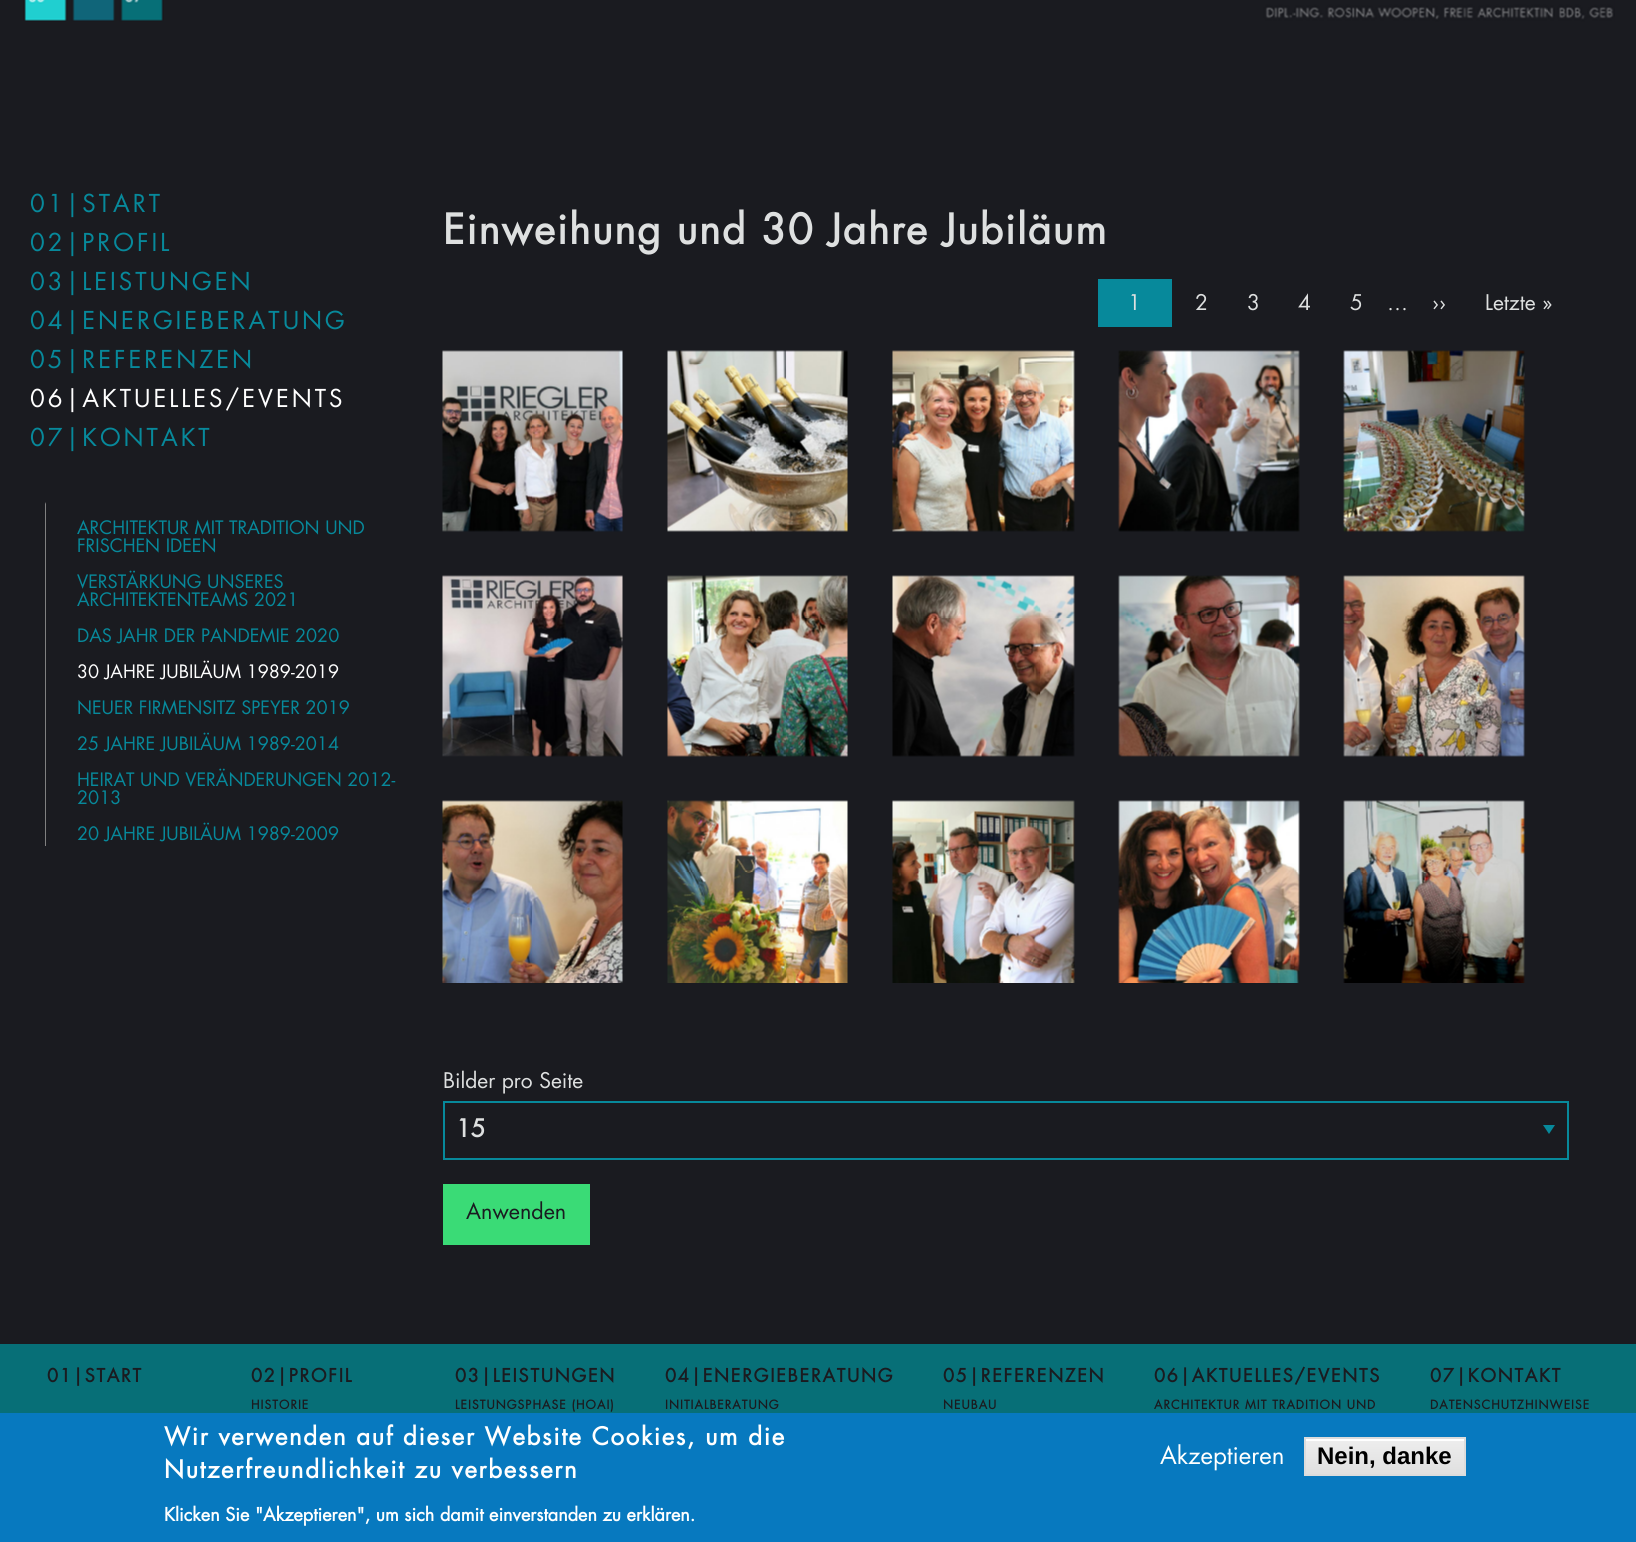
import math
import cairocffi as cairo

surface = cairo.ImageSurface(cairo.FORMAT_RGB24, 1636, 1542)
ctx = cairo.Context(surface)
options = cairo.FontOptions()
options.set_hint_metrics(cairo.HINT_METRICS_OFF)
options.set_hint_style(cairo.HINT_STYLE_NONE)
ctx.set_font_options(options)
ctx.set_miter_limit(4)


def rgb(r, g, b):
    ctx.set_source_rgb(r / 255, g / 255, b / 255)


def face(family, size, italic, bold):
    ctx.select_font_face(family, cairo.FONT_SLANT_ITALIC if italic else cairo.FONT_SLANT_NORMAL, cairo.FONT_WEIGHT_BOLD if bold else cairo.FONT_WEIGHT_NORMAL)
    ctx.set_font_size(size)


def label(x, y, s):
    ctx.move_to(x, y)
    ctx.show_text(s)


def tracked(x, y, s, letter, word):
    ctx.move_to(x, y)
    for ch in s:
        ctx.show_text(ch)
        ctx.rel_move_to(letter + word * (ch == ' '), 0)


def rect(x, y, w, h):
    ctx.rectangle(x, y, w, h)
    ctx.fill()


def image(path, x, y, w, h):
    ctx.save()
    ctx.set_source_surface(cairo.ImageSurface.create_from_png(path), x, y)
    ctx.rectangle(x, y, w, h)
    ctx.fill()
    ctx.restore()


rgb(26, 27, 32)
ctx.paint()
image('image0.png', 23, 0, 1592, 22)
face('Futura', 24, 0, 0)
rgb(7, 137, 155)
tracked(30, 212, '01|START', 3, 0)
tracked(30, 251, '02|PROFIL', 3, 0)
tracked(30, 290, '03|LEISTUNGEN', 3, 0)
tracked(30, 329, '04|ENERGIEBERATUNG', 3, 0)
tracked(30, 368, '05|REFERENZEN', 3, 0)
rgb(255, 255, 255)
tracked(30, 407, '06|AKTUELLES/EVENTS', 3, 0)
rgb(7, 137, 155)
tracked(30, 446, '07|KONTAKT', 3, 0)
rgb(128, 128, 128)
ctx.new_path()
ctx.move_to(45, 846)
ctx.line_to(45, 502)
ctx.line_to(46, 504)
ctx.line_to(46, 846)
ctx.close_path()
ctx.fill()
face('Futura', 18, 0, 0)
rgb(7, 137, 155)
label(77, 534, 'ARCHITEKTUR MIT TRADITION UND')
label(77, 552, 'FRISCHEN IDEEN')
label(77, 588, 'VERSTÄRKUNG UNSERES')
label(77, 606, 'ARCHITEKTENTEAMS 2021')
label(77, 642, 'DAS JAHR DER PANDEMIE 2020')
rgb(255, 255, 255)
label(77, 678, '30 JAHRE JUBILÄUM 1989-2019')
rgb(7, 137, 155)
label(77, 714, 'NEUER FIRMENSITZ SPEYER 2019')
label(77, 750, '25 JAHRE JUBILÄUM 1989-2014')
label(77, 786, 'HEIRAT UND VERÄNDERUNGEN 2012-')
label(77, 804, '2013')
label(77, 840, '20 JAHRE JUBILÄUM 1989-2009')
face('Futura', 40.5, 0, 1)
rgb(222, 224, 224)
tracked(443, 244, 'Einweihung und 30 Jahre Jubiläum', 1.65, 0)
rgb(7, 137, 155)
rect(1098, 279, 74, 48)
face('Futura', 21, 0, 0)
rgb(222, 224, 224)
label(1128, 310, '1')
label(1195, 310, '2')
label(1247, 310, '3')
label(1298, 310, '4')
label(1350, 310, '5')
label(1387, 310, '…')
label(1432, 310, '››')
label(1485, 310, 'Letzte »')
image('image1.png', 442, 350, 181, 182)
image('image2.png', 667, 350, 181, 182)
image('image3.png', 892, 350, 183, 182)
image('image4.png', 1118, 350, 182, 182)
image('image5.png', 1343, 350, 182, 182)
image('image6.png', 442, 575, 181, 182)
image('image7.png', 667, 575, 181, 182)
image('image8.png', 892, 575, 183, 182)
image('image9.png', 1118, 575, 182, 182)
image('image10.png', 1343, 575, 182, 182)
image('image11.png', 442, 800, 181, 183)
image('image12.png', 667, 800, 181, 183)
image('image13.png', 892, 800, 183, 183)
image('image14.png', 1118, 800, 182, 183)
image('image15.png', 1343, 800, 182, 183)
label(443, 1088, 'Bilder pro Seite')
rgb(7, 137, 155)
ctx.new_path()
ctx.move_to(1543, 1125)
ctx.line_to(1555, 1125)
ctx.line_to(1549, 1134)
ctx.close_path()
ctx.fill()
ctx.rectangle(444, 1102, 1124, 57)
ctx.stroke()
face('Futura', 24, 0, 1)
rgb(222, 224, 224)
label(456, 1137, '15')
rgb(58, 219, 118)
rect(443, 1184, 147, 61)
face('Futura', 21.5, 0, 0)
rgb(26, 27, 32)
label(466, 1219, 'Anwenden')
rgb(7, 111, 119)
rect(0, 1344, 1636, 69)
face('Futura', 18, 0, 1)
rgb(26, 27, 32)
tracked(47, 1382, '01|START', 1.75, 0)
tracked(251, 1382, '02|PROFIL', 1.75, 0)
face('Futura', 12, 0, 1)
tracked(251, 1409, 'HISTORIE', 1.05, 0)
face('Futura', 18, 0, 1)
tracked(455, 1382, '03|LEISTUNGEN', 1.75, 0)
face('Futura', 12, 0, 1)
tracked(455, 1409, 'LEISTUNGSPHASE (HOAI)', 1.05, 0)
face('Futura', 18, 0, 1)
tracked(665, 1382, '04|ENERGIEBERATUNG', 1.75, 0)
face('Futura', 12, 0, 1)
tracked(665, 1409, 'INITIALBERATUNG', 1.05, 0)
face('Futura', 18, 0, 1)
tracked(943, 1382, '05|REFERENZEN', 1.75, 0)
face('Futura', 12, 0, 1)
tracked(943, 1409, 'NEUBAU', 1.05, 0)
face('Futura', 18, 0, 1)
tracked(1154, 1382, '06|AKTUELLES/EVENTS', 1.75, 0)
face('Futura', 12, 0, 1)
tracked(1154, 1409, 'ARCHITEKTUR MIT TRADITION UND', 1.05, 0)
face('Futura', 18, 0, 1)
tracked(1430, 1382, '07|KONTAKT', 1.75, 0)
face('Futura', 12, 0, 1)
tracked(1430, 1409, 'DATENSCHUTZHINWEISE', 1.05, 0)
rgb(7, 121, 191)
rect(0, 1413, 1636, 129)
face('Futura', 24, 0, 1)
rgb(255, 255, 255)
tracked(164, 1445, 'Wir verwenden auf dieser Website Cookies, um die', 1.65, 0)
tracked(164, 1478, 'Nutzerfreundlichkeit zu verbessern', 1.65, 0)
face('Futura', 18, 0, 1)
label(164, 1521, 'Klicken Sie "Akzeptieren", um sich damit einverstanden zu erklären.')
face('Futura', 24, 0, 0)
label(1160, 1464, 'Akzeptieren')
gradient = cairo.LinearGradient(1385, 1439, 1385, 1475)
gradient.add_color_stop_rgba(0.05, 0.929, 0.929, 0.929, 1)
gradient.add_color_stop_rgba(1, 0.875, 0.875, 0.875, 1)
ctx.set_source(gradient)
rect(1306, 1441, 158, 33)
rgb(255, 255, 255)
rect(1305, 1439, 159, 2)
ctx.rectangle(1305, 1438, 160, 37)
rgb(220, 220, 220)
ctx.stroke()
face('Liberation Sans', 24, 0, 1)
rgb(0, 0, 0)
label(1317, 1464, 'Nein, danke')
surface.write_to_png('render.png')
